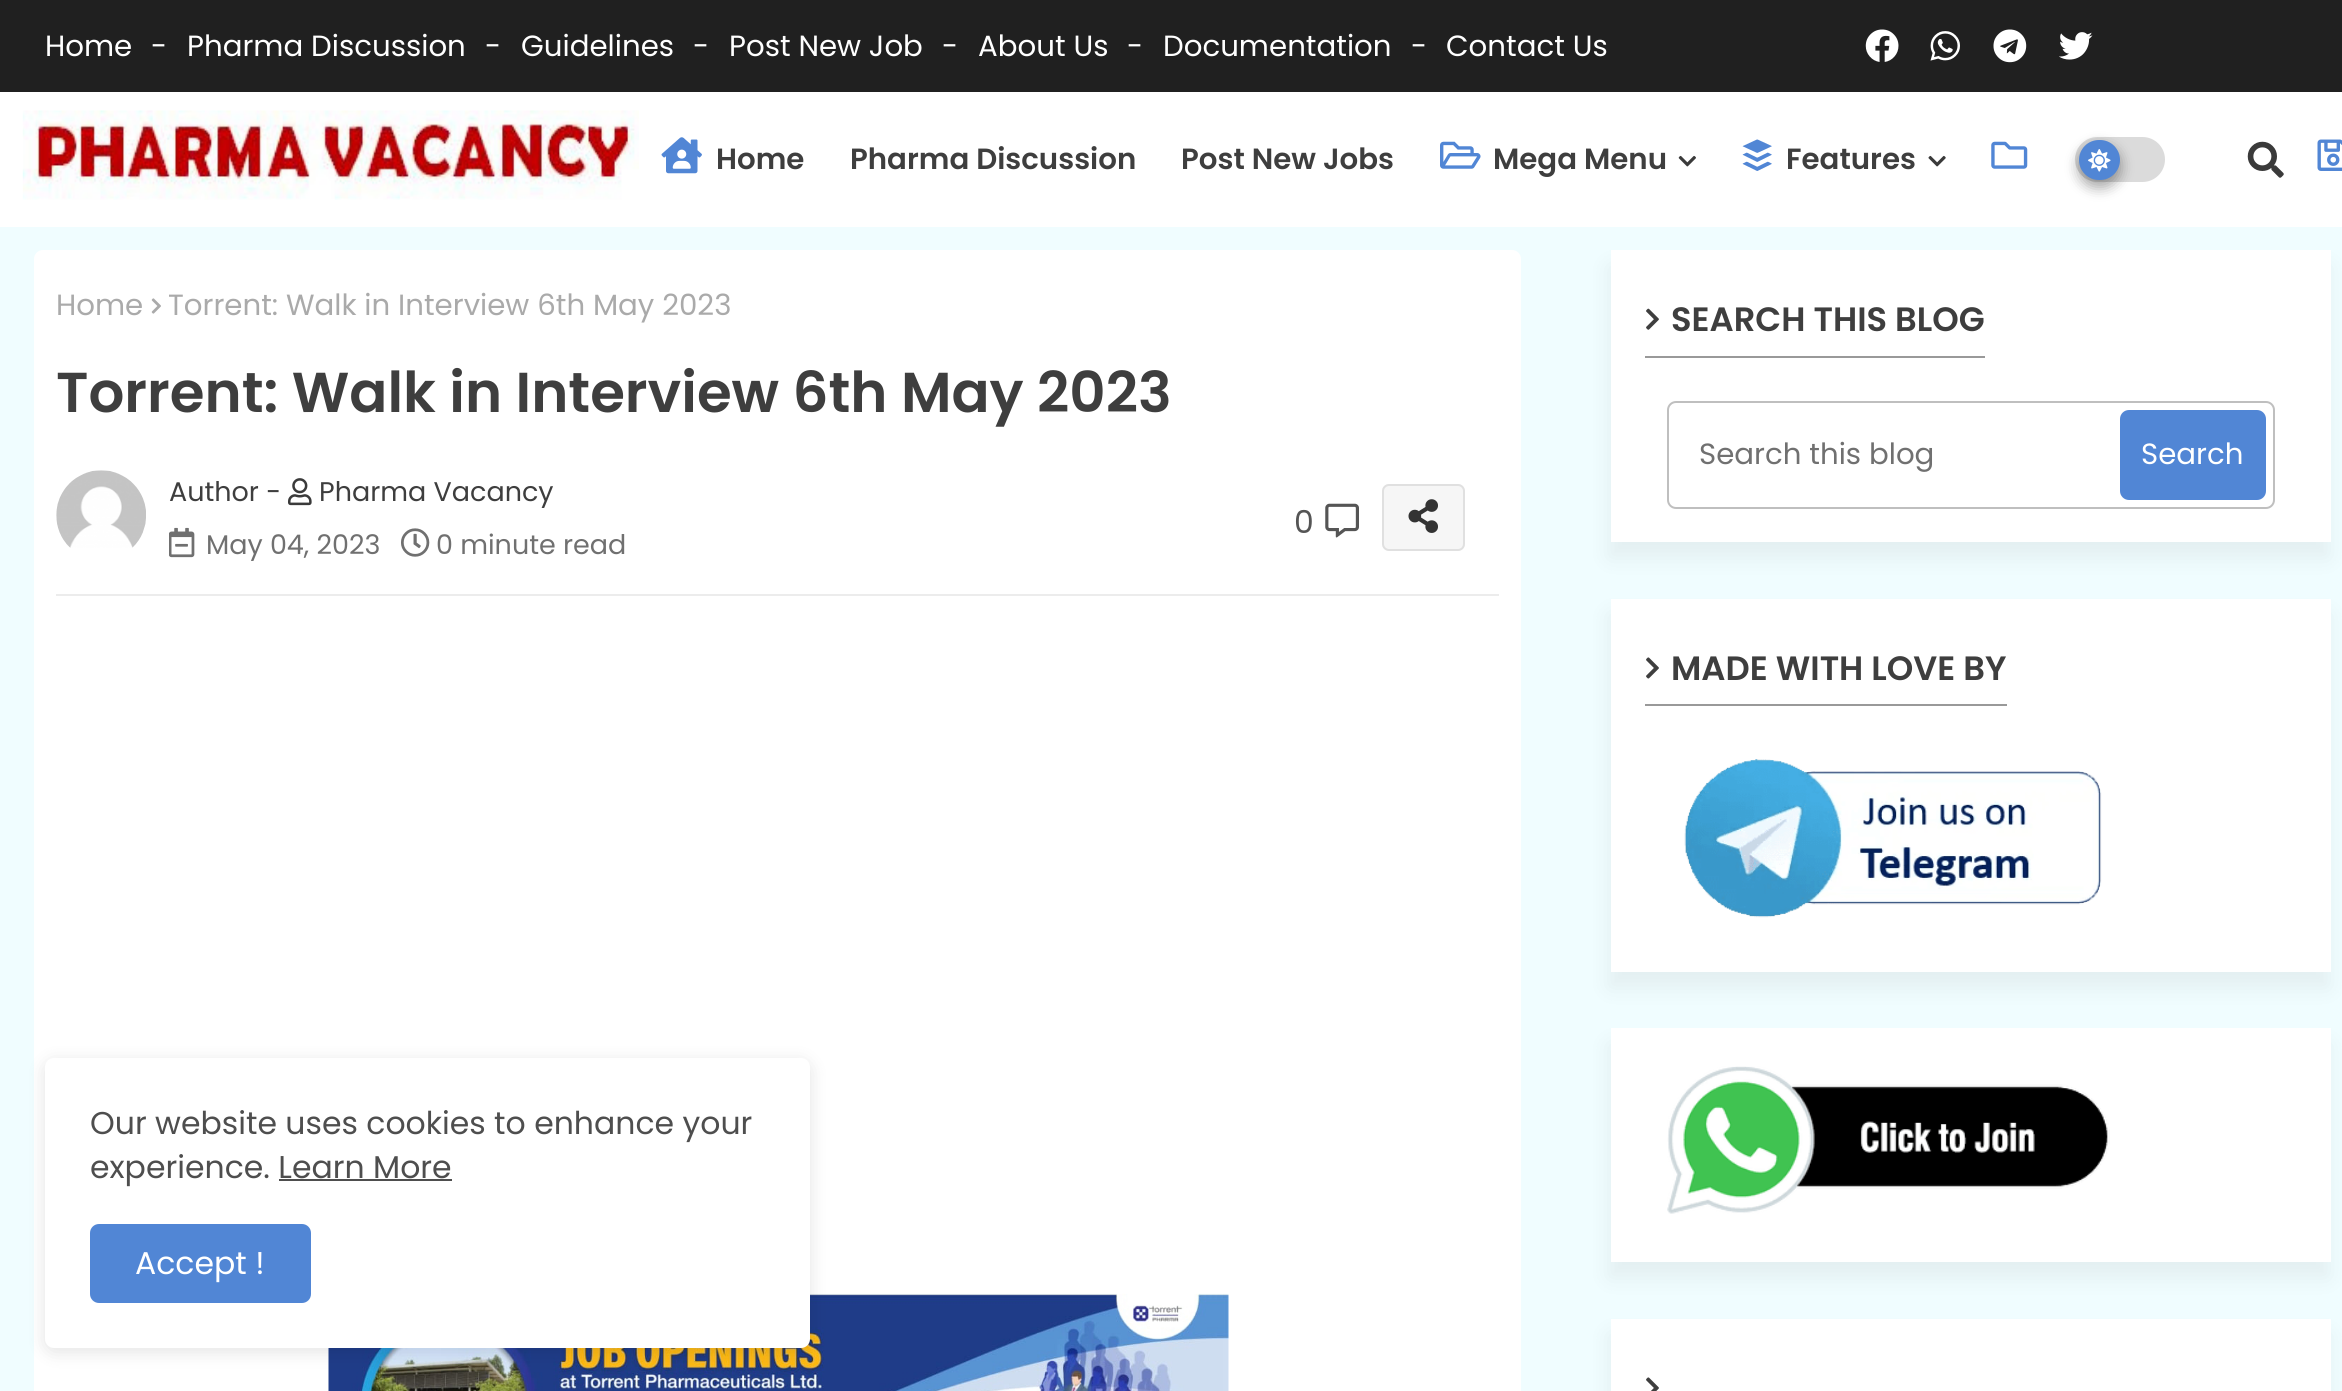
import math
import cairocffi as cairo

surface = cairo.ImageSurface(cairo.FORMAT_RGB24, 2342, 1391)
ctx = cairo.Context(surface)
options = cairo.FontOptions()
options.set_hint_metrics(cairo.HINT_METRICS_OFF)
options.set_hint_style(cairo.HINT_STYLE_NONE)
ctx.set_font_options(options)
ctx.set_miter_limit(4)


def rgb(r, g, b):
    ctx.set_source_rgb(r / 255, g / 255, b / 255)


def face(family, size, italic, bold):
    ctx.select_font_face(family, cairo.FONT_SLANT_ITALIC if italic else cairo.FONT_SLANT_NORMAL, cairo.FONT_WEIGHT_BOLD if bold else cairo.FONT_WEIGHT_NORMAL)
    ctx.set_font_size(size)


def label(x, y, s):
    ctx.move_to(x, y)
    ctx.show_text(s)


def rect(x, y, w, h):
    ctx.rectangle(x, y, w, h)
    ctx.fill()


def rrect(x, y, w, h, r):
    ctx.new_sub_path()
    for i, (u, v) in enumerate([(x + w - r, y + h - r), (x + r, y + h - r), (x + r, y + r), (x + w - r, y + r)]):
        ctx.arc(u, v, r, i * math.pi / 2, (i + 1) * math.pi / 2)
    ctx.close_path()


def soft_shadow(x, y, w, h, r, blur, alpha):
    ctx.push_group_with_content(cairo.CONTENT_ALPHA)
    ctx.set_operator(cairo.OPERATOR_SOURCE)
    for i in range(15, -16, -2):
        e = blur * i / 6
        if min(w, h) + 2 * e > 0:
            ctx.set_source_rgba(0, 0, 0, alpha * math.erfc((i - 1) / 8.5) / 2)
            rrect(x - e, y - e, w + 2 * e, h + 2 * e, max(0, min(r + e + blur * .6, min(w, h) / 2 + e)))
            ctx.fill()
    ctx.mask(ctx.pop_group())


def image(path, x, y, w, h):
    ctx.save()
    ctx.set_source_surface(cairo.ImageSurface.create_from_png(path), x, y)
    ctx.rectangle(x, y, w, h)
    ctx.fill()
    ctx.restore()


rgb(240, 253, 255)
ctx.paint()
rgb(32, 32, 32)
rect(0, 0, 2342, 92)
face('Poppins', 29.25, 0, 0)
rgb(255, 255, 255)
label(45, 56, 'Home')
label(151, 56, '-')
label(187, 56, 'Pharma Discussion')
label(485, 56, '-')
label(521, 56, 'Guidelines')
label(693, 56, '-')
label(729, 56, 'Post New Job')
label(942, 56, '-')
label(978, 56, 'About Us')
label(1127, 56, '-')
label(1163, 56, 'Documentation')
label(1411, 56, '-')
label(1446, 56, 'Contact Us')
image('image0.png', 1865, 29, 34, 33)
image('image1.png', 1930, 31, 30, 30)
image('image2.png', 1993, 29, 34, 34)
image('image3.png', 2059, 32, 34, 28)
rect(0, 92, 2342, 135)
image('image4.png', 22, 110, 617, 90)
image('image5.png', 661, 137, 41, 37)
face('Poppins SemiBold', 29.25, 0, 0)
rgb(62, 62, 62)
label(716, 169, 'Home')
label(850, 169, 'Pharma Discussion')
label(1181, 169, 'Post New Jobs')
image('image6.png', 1440, 141, 41, 28)
label(1493, 169, 'Mega Menu')
image('image7.png', 1678, 155, 18, 12)
image('image8.png', 1742, 139, 30, 32)
label(1786, 169, 'Features')
image('image9.png', 1928, 155, 18, 12)
image('image10.png', 1991, 141, 37, 28)
image('image11.png', 2317, 139, 25, 32)
rgb(219, 219, 219)
rrect(2075, 137, 90, 45, 22.5)
ctx.fill()
rgb(0, 0, 0)
soft_shadow(2079, 146, 41, 41, 20.5, 7, 0.23)
soft_shadow(2079, 146, 41, 41, 20.5, 7, 0.16)
rgb(81, 134, 213)
rrect(2079, 140, 41, 40, 20)
ctx.fill()
image('image12.png', 2088, 149, 23, 23)
image('image13.png', 2247, 141, 37, 37)
rgb(255, 255, 255)
rrect(34, 250, 1487, 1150, 9)
ctx.fill()
face('Poppins', 29.25, 0, 0)
rgb(170, 170, 170)
label(56, 315, 'Home')
image('image14.png', 151, 298, 10, 16)
label(168, 315, 'Torrent: Walk in Interview 6th May 2023')
face('Poppins SemiBold', 56.25, 0, 0)
rgb(62, 62, 62)
label(56, 412, 'Torrent: Walk in Interview 6th May 2023')
rgb(236, 236, 236)
rect(56, 594, 1443, 2)
image('image15.png', 56, 470, 90, 78)
face('Poppins', 27, 0, 0)
rgb(62, 62, 62)
label(169, 501, 'Author -')
image('image16.png', 288, 478, 24, 28)
label(319, 501, 'Pharma Vacancy')
image('image17.png', 169, 527, 26, 31)
rgb(112, 112, 112)
label(206, 554, 'May 04, 2023')
image('image18.png', 401, 528, 29, 29)
label(436, 554, '0 minute read')
face('Poppins', 31.5, 0, 0)
rgb(85, 85, 85)
label(1294, 533, '0')
image('image19.png', 1325, 503, 34, 35)
rgb(246, 246, 246)
rrect(1382, 484, 83, 67, 7)
ctx.fill()
rrect(1383, 485, 81, 65, 6)
ctx.set_source_rgba(0.506, 0.506, 0.506, 0.19)
ctx.stroke()
image('image20.png', 1408, 499, 30, 34)
image('image21.png', 328, 1293, 901, 98)
rgb(0, 0, 0)
soft_shadow(1609, 266, 720, 292, 0, 11, 0.06)
rgb(255, 255, 255)
rect(1611, 250, 720, 292)
rgb(153, 153, 153)
rect(1645, 356, 340, 2)
image('image22.png', 1646, 308, 13, 22)
face('Poppins SemiBold', 33.75, 0, 0)
rgb(62, 62, 62)
label(1671, 331, 'SEARCH THIS BLOG')
rrect(1668, 402, 606, 106, 8)
rgb(191, 191, 191)
ctx.stroke()
face('Poppins', 29.25, 0, 0)
rgb(112, 112, 112)
label(1699, 464, 'Search this blog')
rgb(81, 134, 213)
rrect(2120, 410, 146, 90, 9)
ctx.fill()
rgb(255, 255, 255)
label(2141, 464, 'Search')
rgb(0, 0, 0)
soft_shadow(1609, 614, 720, 374, 0, 11, 0.06)
rgb(255, 255, 255)
rect(1611, 599, 720, 373)
rgb(153, 153, 153)
rect(1645, 704, 362, 2)
image('image23.png', 1646, 657, 13, 22)
face('Poppins SemiBold', 33.75, 0, 0)
rgb(62, 62, 62)
label(1671, 680, 'MADE WITH LOVE BY')
image('image24.png', 1684, 759, 418, 159)
rgb(0, 0, 0)
soft_shadow(1609, 1044, 720, 234, 0, 11, 0.06)
rgb(255, 255, 255)
rect(1611, 1028, 720, 234)
image('image25.png', 1667, 1066, 443, 148)
rgb(0, 0, 0)
soft_shadow(1609, 1334, 720, 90, 0, 11, 0.06)
rgb(255, 255, 255)
rect(1611, 1319, 720, 72)
image('image26.png', 1646, 1377, 13, 14)
rgb(0, 0, 0)
soft_shadow(45, 1062, 765, 290, 9, 9, 0.11)
rgb(255, 255, 255)
rrect(45, 1058, 765, 290, 9)
ctx.fill()
face('Poppins', 31.5, 0, 0)
rgb(78, 78, 78)
label(90, 1134, 'Our website uses cookies to enhance your')
label(90, 1178, 'experience. Learn More')
rect(279, 1179, 173, 2)
rgb(81, 134, 213)
rrect(90, 1224, 221, 79, 9)
ctx.fill()
rgb(255, 255, 255)
label(135, 1274, 'Accept !')
surface.write_to_png('render.png')
